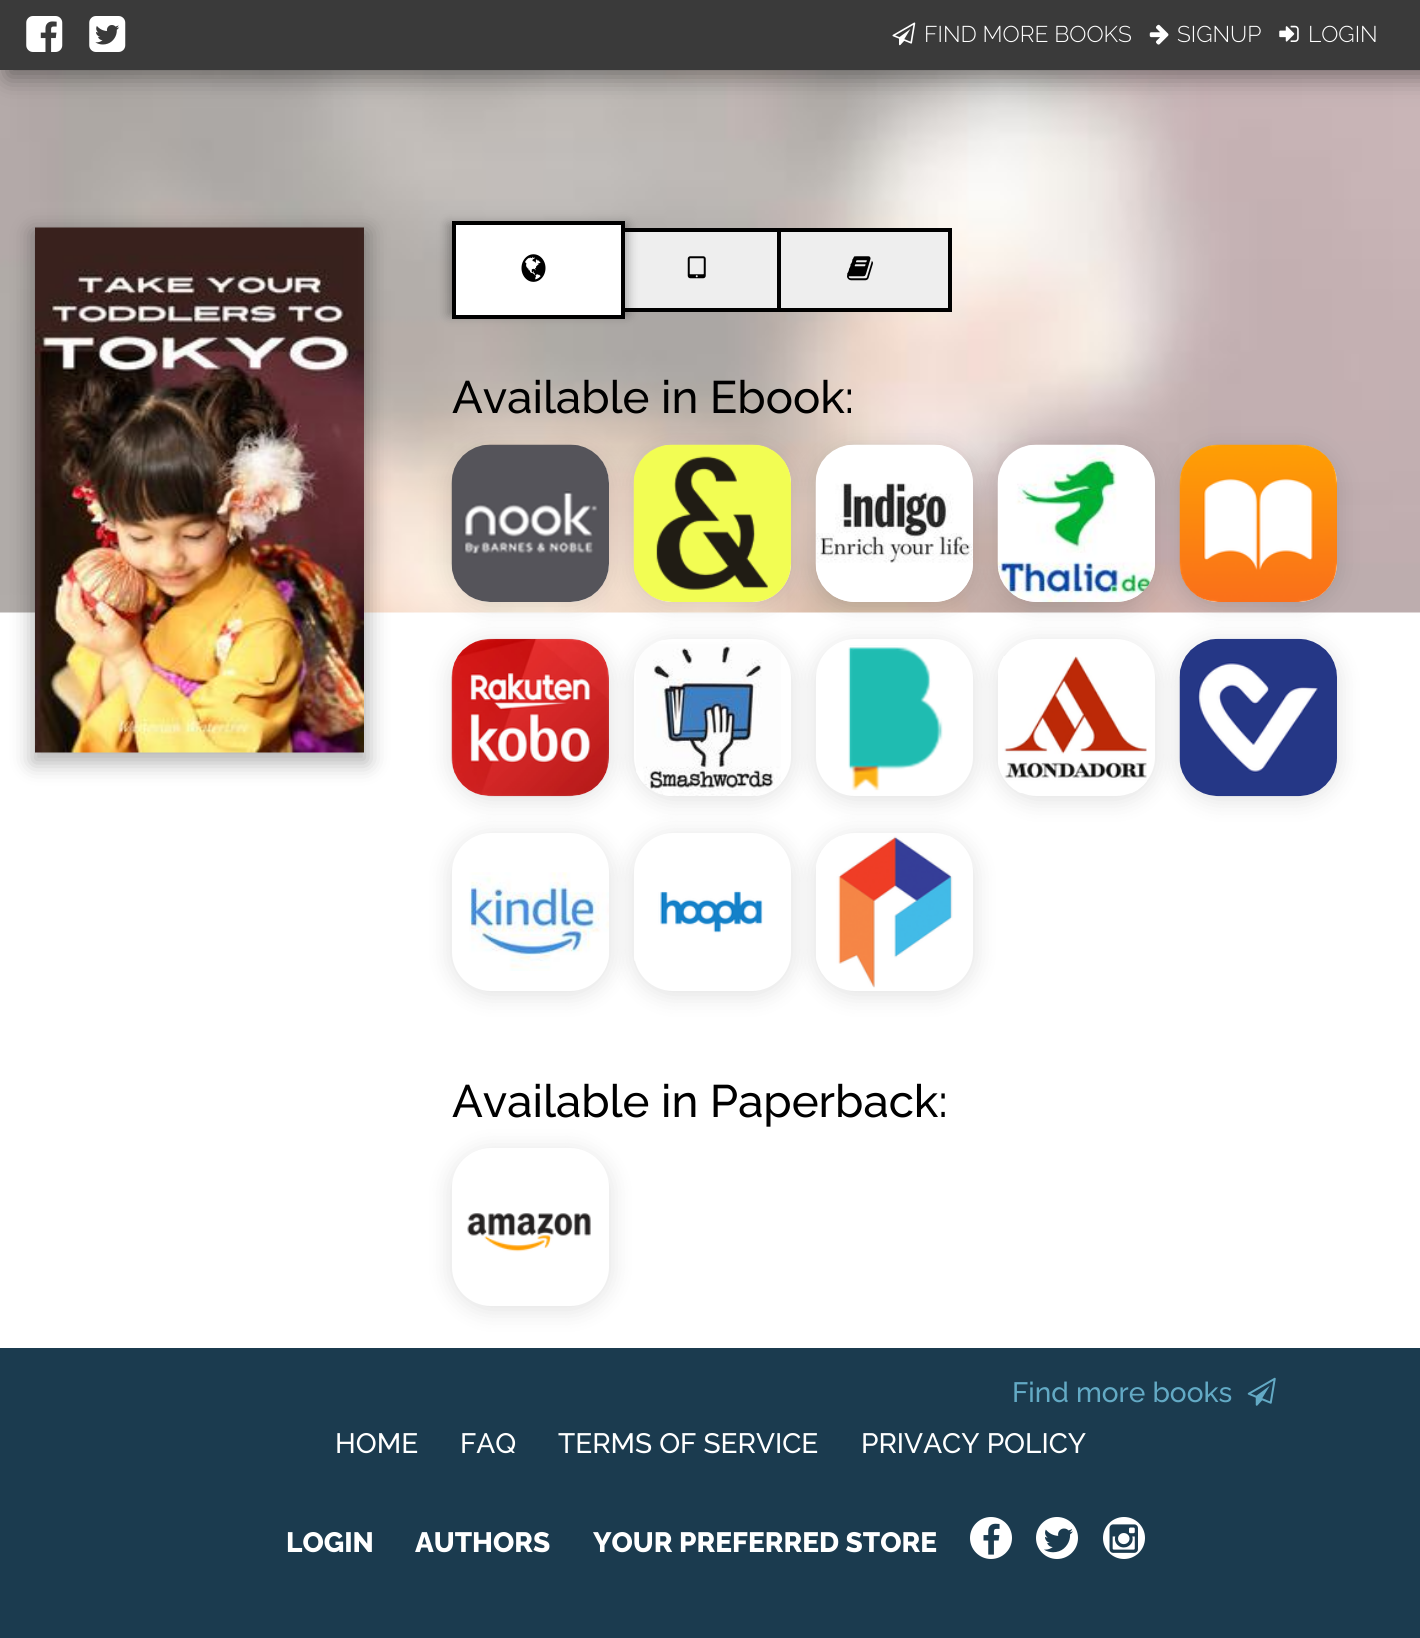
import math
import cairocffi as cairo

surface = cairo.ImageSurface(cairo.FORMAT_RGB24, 1420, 1638)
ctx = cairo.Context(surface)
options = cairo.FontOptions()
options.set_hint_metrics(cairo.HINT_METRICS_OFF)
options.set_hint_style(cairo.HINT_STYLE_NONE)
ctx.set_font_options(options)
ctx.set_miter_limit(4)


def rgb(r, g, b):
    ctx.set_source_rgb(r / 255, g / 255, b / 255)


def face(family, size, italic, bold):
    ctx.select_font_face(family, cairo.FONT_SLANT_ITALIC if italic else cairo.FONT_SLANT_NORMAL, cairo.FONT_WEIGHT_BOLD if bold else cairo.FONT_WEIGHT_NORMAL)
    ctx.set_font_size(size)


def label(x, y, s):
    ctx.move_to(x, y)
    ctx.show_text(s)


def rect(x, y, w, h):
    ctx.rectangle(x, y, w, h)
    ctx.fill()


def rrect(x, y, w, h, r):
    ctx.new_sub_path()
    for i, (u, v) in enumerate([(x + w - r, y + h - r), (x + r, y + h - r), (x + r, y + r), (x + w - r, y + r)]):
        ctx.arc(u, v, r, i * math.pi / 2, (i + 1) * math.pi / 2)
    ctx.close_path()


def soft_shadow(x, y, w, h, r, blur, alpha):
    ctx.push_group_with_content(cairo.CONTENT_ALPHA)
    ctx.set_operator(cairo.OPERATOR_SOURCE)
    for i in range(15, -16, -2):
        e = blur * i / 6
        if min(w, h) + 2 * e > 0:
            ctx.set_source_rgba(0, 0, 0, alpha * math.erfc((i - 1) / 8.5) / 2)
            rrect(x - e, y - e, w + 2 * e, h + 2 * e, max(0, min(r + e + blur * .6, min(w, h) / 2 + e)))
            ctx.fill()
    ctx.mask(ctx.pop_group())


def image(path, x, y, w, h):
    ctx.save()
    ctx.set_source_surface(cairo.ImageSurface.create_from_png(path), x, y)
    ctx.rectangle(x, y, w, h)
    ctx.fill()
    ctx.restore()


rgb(255, 255, 255)
ctx.paint()
image('image0.png', 0, 70, 1420, 543)
rgb(0, 0, 0)
soft_shadow(7, 7, 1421, 70, 0, 12, 0.4)
rgb(58, 58, 58)
rect(0, 0, 1420, 70)
image('image1.png', 26, 16, 37, 36)
image('image2.png', 89, 16, 37, 36)
image('image3.png', 892, 22, 24, 24)
face('Raleway Light', 22.75, 0, 0)
rgb(255, 255, 255)
label(924, 42, 'FIND MORE BOOKS')
image('image4.png', 1149, 24, 20, 21)
label(1177, 42, 'SIGNUP')
image('image5.png', 1279, 25, 20, 17)
label(1308, 42, 'LOGIN')
rgb(0, 0, 0)
soft_shadow(32, 231, 336, 532, 0, 10.5, 0.3)
image('image6.png', 35, 227, 329, 526)
rgb(238, 238, 238)
rect(625, 232, 152, 76)
ctx.rectangle(620, 230, 162, 80)
rgb(0, 0, 0)
ctx.set_line_width(4)
ctx.stroke()
rgb(0, 0, 0)
soft_shadow(448, 224, 180, 91, 0, 5.5, 0.3)
rgb(255, 255, 255)
ctx.rectangle(454, 223, 169, 94)
ctx.fill_preserve()
rgb(0, 0, 0)
ctx.stroke()
image('image7.png', 521, 254, 25, 28)
image('image8.png', 687, 256, 19, 23)
rgb(238, 238, 238)
ctx.rectangle(779, 230, 171, 80)
ctx.fill_preserve()
rgb(0, 0, 0)
ctx.stroke()
image('image9.png', 847, 256, 26, 25)
rgb(0, 0, 0)
soft_shadow(448, 445, 165, 164, 42, 10.5, 0.1)
rgb(255, 255, 255)
rrect(452, 445, 157, 157, 39)
ctx.fill()
image('image10.png', 451, 444, 158, 158)
rgb(0, 0, 0)
soft_shadow(630, 445, 165, 164, 42, 10.5, 0.1)
rgb(255, 255, 255)
rrect(634, 445, 157, 157, 39)
ctx.fill()
image('image11.png', 633, 444, 158, 158)
rgb(0, 0, 0)
soft_shadow(812, 445, 165, 164, 42, 10.5, 0.1)
face('Raleway Medium', 45.5, 0, 0)
rgb(0, 0, 0)
label(452, 413, 'Available in Ebook:')
rgb(255, 255, 255)
rrect(816, 445, 157, 157, 39)
ctx.fill()
image('image12.png', 815, 444, 158, 158)
rgb(0, 0, 0)
soft_shadow(994, 445, 165, 164, 42, 10.5, 0.1)
rgb(255, 255, 255)
rrect(998, 445, 157, 157, 39)
ctx.fill()
image('image13.png', 997, 444, 158, 158)
rgb(0, 0, 0)
soft_shadow(1176, 445, 165, 164, 42, 10.5, 0.1)
rgb(255, 255, 255)
rrect(1180, 445, 157, 157, 39)
ctx.fill()
image('image14.png', 1179, 444, 158, 158)
rgb(0, 0, 0)
soft_shadow(448, 639, 165, 164, 42, 10.5, 0.1)
rgb(255, 255, 255)
rrect(452, 639, 157, 157, 39)
ctx.fill()
image('image15.png', 451, 638, 158, 159)
rgb(0, 0, 0)
soft_shadow(630, 639, 165, 164, 42, 10.5, 0.1)
rgb(255, 255, 255)
rrect(634, 639, 157, 157, 39)
ctx.fill()
image('image17.png', 636, 640, 145, 156)
rgb(0, 0, 0)
soft_shadow(812, 639, 165, 164, 42, 10.5, 0.1)
rgb(255, 255, 255)
rrect(816, 639, 157, 157, 39)
ctx.fill()
rgb(0, 0, 0)
soft_shadow(994, 639, 165, 164, 42, 10.5, 0.1)
rgb(255, 255, 255)
rrect(998, 639, 157, 157, 39)
ctx.fill()
image('image19.png', 998, 656, 149, 137)
rgb(0, 0, 0)
soft_shadow(1176, 639, 165, 164, 42, 10.5, 0.1)
image('image16.png', 1179, 638, 158, 159)
image('image18.png', 848, 645, 95, 146)
soft_shadow(448, 833, 165, 165, 42, 10.5, 0.1)
rgb(255, 255, 255)
rrect(452, 833, 157, 158, 39)
ctx.fill()
image('image20.png', 469, 872, 140, 99)
rgb(0, 0, 0)
soft_shadow(630, 833, 165, 165, 42, 10.5, 0.1)
rgb(255, 255, 255)
rrect(634, 833, 157, 158, 39)
ctx.fill()
rgb(0, 0, 0)
soft_shadow(812, 833, 165, 165, 42, 10.5, 0.1)
rgb(255, 255, 255)
rrect(816, 833, 157, 158, 39)
ctx.fill()
image('image21.png', 634, 890, 129, 71)
image('image22.png', 816, 836, 137, 152)
rgb(0, 0, 0)
soft_shadow(448, 1148, 165, 165, 42, 10.5, 0.1)
rgb(0, 0, 0)
label(452, 1117, 'Available in Paperback:')
rgb(255, 255, 255)
rrect(452, 1148, 157, 158, 39)
ctx.fill()
image('image23.png', 467, 1213, 124, 39)
rgb(27, 59, 79)
rect(0, 1348, 1420, 290)
face('Raleway Medium', 28, 0, 0)
rgb(99, 170, 197)
label(1012, 1402, 'Find more books')
image('image24.png', 1247, 1377, 29, 29)
rgb(255, 255, 255)
label(335, 1453, 'HOME')
label(460, 1453, 'FAQ')
label(558, 1453, 'TERMS OF SERVICE')
label(861, 1453, 'PRIVACY POLICY')
face('Raleway ExtraBold', 28, 0, 0)
label(286, 1552, 'LOGIN')
label(415, 1552, 'AUTHORS')
label(593, 1552, 'YOUR PREFERRED STORE')
ctx.new_path()
ctx.arc(991, 1538, 21, 0, 2 * math.pi)
ctx.fill()
image('image25.png', 983, 1523, 17, 32)
ctx.arc(1057, 1538, 21, 0, 2 * math.pi)
ctx.fill()
image('image26.png', 1044, 1528, 29, 25)
ctx.arc(1124, 1538, 21, 0, 2 * math.pi)
ctx.fill()
image('image27.png', 1109, 1524, 29, 29)
surface.write_to_png('render.png')
